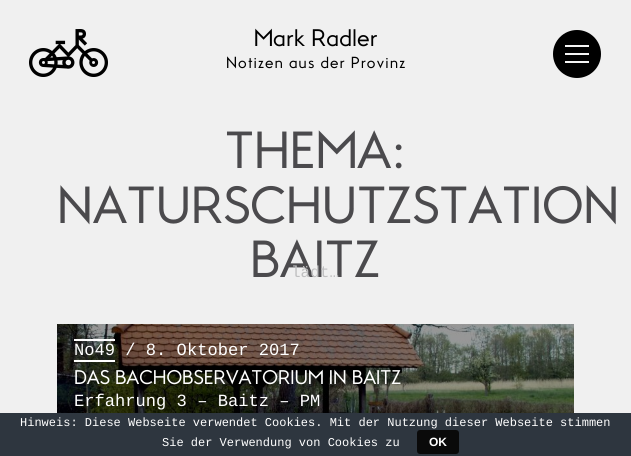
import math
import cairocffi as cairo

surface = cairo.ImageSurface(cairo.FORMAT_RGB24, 631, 456)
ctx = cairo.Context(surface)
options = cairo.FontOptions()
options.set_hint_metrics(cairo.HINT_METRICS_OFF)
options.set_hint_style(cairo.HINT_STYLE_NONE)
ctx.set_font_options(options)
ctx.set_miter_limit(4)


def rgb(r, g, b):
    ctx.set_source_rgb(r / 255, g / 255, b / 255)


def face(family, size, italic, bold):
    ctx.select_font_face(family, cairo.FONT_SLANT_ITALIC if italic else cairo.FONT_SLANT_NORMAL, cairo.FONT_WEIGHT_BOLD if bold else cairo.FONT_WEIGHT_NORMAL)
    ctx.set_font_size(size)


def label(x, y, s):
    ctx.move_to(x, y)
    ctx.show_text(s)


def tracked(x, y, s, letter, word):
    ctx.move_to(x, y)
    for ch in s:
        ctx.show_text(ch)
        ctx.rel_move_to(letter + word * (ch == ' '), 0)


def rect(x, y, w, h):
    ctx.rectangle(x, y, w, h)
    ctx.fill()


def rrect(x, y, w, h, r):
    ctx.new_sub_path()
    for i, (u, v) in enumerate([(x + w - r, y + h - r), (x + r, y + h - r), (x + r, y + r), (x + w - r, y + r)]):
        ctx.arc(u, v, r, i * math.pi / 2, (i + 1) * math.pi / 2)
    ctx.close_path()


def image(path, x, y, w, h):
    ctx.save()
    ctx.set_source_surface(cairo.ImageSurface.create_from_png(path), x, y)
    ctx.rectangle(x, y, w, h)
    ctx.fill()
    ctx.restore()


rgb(240, 240, 240)
ctx.paint()
image('image0.png', 29, 29, 79, 48)
face('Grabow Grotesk', 22.75, 0, 0)
rgb(0, 0, 0)
label(254, 46, 'Mark Radler')
face('Grabow Grotesk', 15.25, 0, 0)
tracked(226, 68, 'Notizen aus der Provinz', 1, 0)
face('Grabow Grotesk', 49.4, 0, 0)
rgb(75, 74, 77)
label(225, 168, 'THEMA:')
label(57, 223, 'NATURSCHUTZSTATION')
label(250, 277, 'BAITZ')
image('image1.png', 57, 324, 517, 89)
face('Liberation Mono', 17.1, 0, 0)
rgb(255, 255, 255)
label(74, 355, 'No49 / 8. Oktober 2017')
rect(74, 339, 41, 2)
rect(74, 360, 41, 2)
face('Grabow Grotesk', 18.8, 0, 0)
label(74, 384, 'DAS BACHOBSERVATORIUM IN BAITZ')
face('Liberation Mono', 17.1, 0, 0)
label(74, 406, 'Erfahrung 3 – Baitz – PM')
rgb(0, 0, 0)
ctx.new_path()
ctx.arc(577, 54, 24, 0, 2 * math.pi)
ctx.fill()
rgb(245, 245, 245)
rect(565, 45, 24, 2)
rect(565, 61, 24, 2)
rect(565, 53, 24, 2)
face('Liberation Mono', 16, 0, 0)
rgb(192, 192, 193)
label(291, 277, 'lädt…')
rgb(46, 54, 63)
rect(0, 413, 631, 43)
face('Liberation Mono', 12, 0, 0)
rgb(255, 255, 255)
label(20, 426, 'Hinweis: Diese Webseite verwendet Cookies. Mit der Nutzung dieser Webseite stimmen')
label(162, 446, 'Sie der Verwendung von Cookies zu')
rgb(10, 10, 10)
rrect(417, 430, 42, 24, 3)
ctx.fill()
face('Liberation Sans', 12, 0, 1)
rgb(255, 255, 255)
label(429, 446, 'OK')
surface.write_to_png('render.png')
